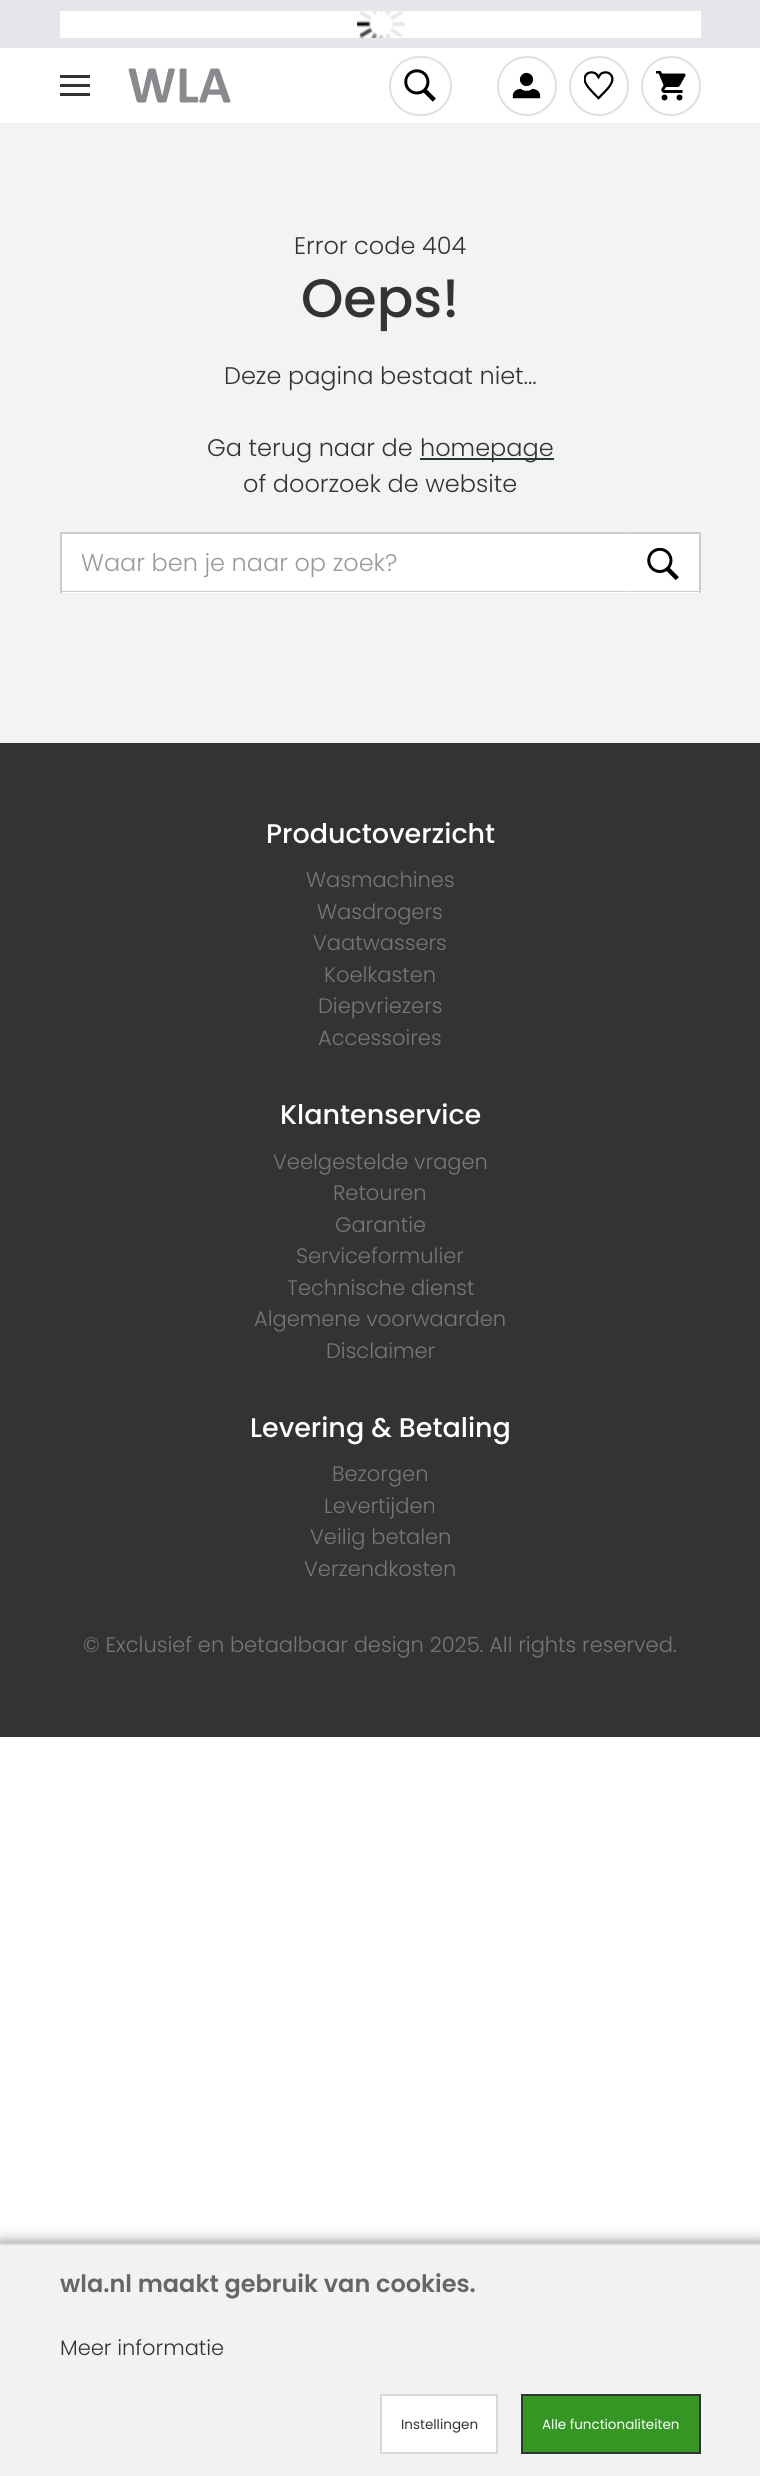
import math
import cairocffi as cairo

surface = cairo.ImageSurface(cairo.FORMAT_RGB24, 760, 2476)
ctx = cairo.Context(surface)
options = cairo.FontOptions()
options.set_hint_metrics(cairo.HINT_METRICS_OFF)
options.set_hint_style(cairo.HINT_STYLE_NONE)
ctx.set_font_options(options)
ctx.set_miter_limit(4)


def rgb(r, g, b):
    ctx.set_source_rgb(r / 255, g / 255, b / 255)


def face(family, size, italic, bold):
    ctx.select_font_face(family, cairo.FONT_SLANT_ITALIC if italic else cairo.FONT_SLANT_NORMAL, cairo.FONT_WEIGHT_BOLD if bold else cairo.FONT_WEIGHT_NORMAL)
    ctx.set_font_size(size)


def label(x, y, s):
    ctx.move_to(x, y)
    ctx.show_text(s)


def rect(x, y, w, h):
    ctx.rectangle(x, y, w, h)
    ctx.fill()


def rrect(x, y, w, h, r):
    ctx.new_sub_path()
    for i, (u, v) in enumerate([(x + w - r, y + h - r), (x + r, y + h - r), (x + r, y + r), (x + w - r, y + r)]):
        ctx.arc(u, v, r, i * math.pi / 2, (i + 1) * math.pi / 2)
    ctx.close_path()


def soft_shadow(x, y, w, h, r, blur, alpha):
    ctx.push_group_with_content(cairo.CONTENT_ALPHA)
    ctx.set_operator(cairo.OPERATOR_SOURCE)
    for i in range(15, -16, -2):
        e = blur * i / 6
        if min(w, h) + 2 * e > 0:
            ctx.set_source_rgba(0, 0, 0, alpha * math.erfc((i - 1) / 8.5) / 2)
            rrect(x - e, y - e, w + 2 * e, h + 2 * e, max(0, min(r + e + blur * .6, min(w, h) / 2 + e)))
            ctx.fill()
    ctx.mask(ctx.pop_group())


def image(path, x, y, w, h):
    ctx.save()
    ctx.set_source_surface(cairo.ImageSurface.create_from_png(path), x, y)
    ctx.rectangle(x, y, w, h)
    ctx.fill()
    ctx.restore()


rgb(255, 255, 255)
ctx.paint()
rgb(228, 230, 234)
rect(0, 0, 760, 48)
rgb(255, 255, 255)
rect(60, 11, 641, 27)
image('image0.png', 357, 11, 48, 27)
rgb(51, 51, 51)
rect(60, 75, 30, 3)
rect(60, 84, 30, 3)
rect(60, 93, 30, 3)
image('image1.png', 128, 68, 103, 35)
rrect(390, 57, 61, 58, 29)
rgb(224, 224, 224)
ctx.stroke()
image('image2.png', 404, 69, 32, 33)
ctx.arc(527, 86, 29, 0, 2 * math.pi)
ctx.stroke()
image('image3.png', 512, 72, 29, 27)
ctx.arc(599, 86, 29, 0, 2 * math.pi)
ctx.stroke()
image('image4.png', 584, 71, 30, 29)
ctx.arc(671, 86, 29, 0, 2 * math.pi)
ctx.stroke()
image('image5.png', 656, 71, 30, 30)
rgb(242, 243, 245)
rect(0, 123, 760, 620)
face('Poppins Light', 24, 0, 0)
rgb(51, 51, 51)
label(294, 254, 'Error code 404')
face('Poppins Medium', 54, 0, 0)
label(301, 317, 'Oeps!')
face('Poppins Light', 24, 0, 0)
label(224, 384, 'Deze pagina bestaat niet...')
label(207, 456, 'Ga terug naar de')
rgb(47, 52, 54)
rect(420, 458, 134, 2)
rgb(51, 51, 51)
label(420, 456, 'homepage')
label(243, 492, 'of doorzoek de website')
rgb(255, 255, 255)
rect(62, 534, 564, 59)
rgb(204, 204, 204)
ctx.new_path()
ctx.move_to(60, 532)
ctx.line_to(627, 532)
ctx.line_to(626, 534)
ctx.line_to(62, 534)
ctx.close_path()
ctx.fill()
ctx.new_path()
ctx.move_to(627, 592)
ctx.line_to(60, 592)
ctx.line_to(62, 591)
ctx.line_to(626, 591)
ctx.close_path()
ctx.fill()
rect(60, 533, 2, 60)
rgb(153, 153, 153)
label(81, 571, 'Waar ben je naar op zoek?')
rgb(255, 255, 255)
rect(626, 533, 73, 60)
rgb(204, 204, 204)
ctx.new_path()
ctx.move_to(626, 532)
ctx.line_to(700, 532)
ctx.line_to(699, 534)
ctx.line_to(627, 534)
ctx.close_path()
ctx.fill()
rect(699, 533, 2, 60)
ctx.new_path()
ctx.move_to(700, 592)
ctx.line_to(626, 592)
ctx.line_to(627, 591)
ctx.line_to(699, 591)
ctx.close_path()
ctx.fill()
image('image6.png', 647, 548, 32, 33)
rgb(51, 51, 51)
rect(0, 743, 760, 994)
face('Poppins Medium', 27, 0, 0)
rgb(255, 255, 255)
label(266, 843, 'Productoverzicht')
face('Poppins Light', 21, 0, 0)
rgb(119, 119, 119)
label(306, 887, 'Wasmachines')
label(317, 919, 'Wasdrogers')
label(313, 950, 'Vaatwassers')
label(324, 982, 'Koelkasten')
label(318, 1013, 'Diepvriezers')
label(318, 1045, 'Accessoires')
face('Poppins Medium', 27, 0, 0)
rgb(255, 255, 255)
label(280, 1124, 'Klantenservice')
face('Poppins Light', 21, 0, 0)
rgb(119, 119, 119)
label(273, 1169, 'Veelgestelde vragen')
label(333, 1200, 'Retouren')
label(335, 1232, 'Garantie')
label(296, 1263, 'Serviceformulier')
label(287, 1295, 'Technische dienst')
label(254, 1326, 'Algemene voorwaarden')
label(326, 1358, 'Disclaimer')
face('Poppins Medium', 27, 0, 0)
rgb(255, 255, 255)
label(250, 1437, 'Levering & Betaling')
face('Poppins Light', 21, 0, 0)
rgb(119, 119, 119)
label(332, 1481, 'Bezorgen')
label(324, 1513, 'Levertijden')
label(310, 1544, 'Veilig betalen')
label(304, 1576, 'Verzendkosten')
label(83, 1652, '© Exclusief en betaalbaar design 2025. All rights reserved.')
rgb(0, 0, 0)
soft_shadow(0, 2243, 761, 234, 0, 7.5, 0.5)
rgb(242, 242, 242)
rect(0, 2245, 760, 231)
rgb(216, 216, 216)
rect(0, 2243, 760, 2)
face('Poppins SemiBold', 24, 0, 0)
rgb(102, 102, 102)
label(60, 2292, 'wla.nl maakt gebruik van cookies.')
face('Poppins Light', 21, 0, 0)
rgb(51, 51, 51)
label(60, 2355, 'Meer informatie')
rgb(255, 255, 255)
ctx.rectangle(381, 2395, 116, 58)
ctx.fill_preserve()
rgb(216, 216, 216)
ctx.stroke()
face('Poppins', 13.5, 0, 0)
rgb(51, 51, 51)
label(401, 2429, 'Instellingen')
rgb(53, 150, 36)
ctx.rectangle(522, 2395, 178, 58)
ctx.fill_preserve()
rgb(47, 52, 54)
ctx.stroke()
rgb(255, 255, 255)
label(542, 2429, 'Alle functionaliteiten')
surface.write_to_png('render.png')
